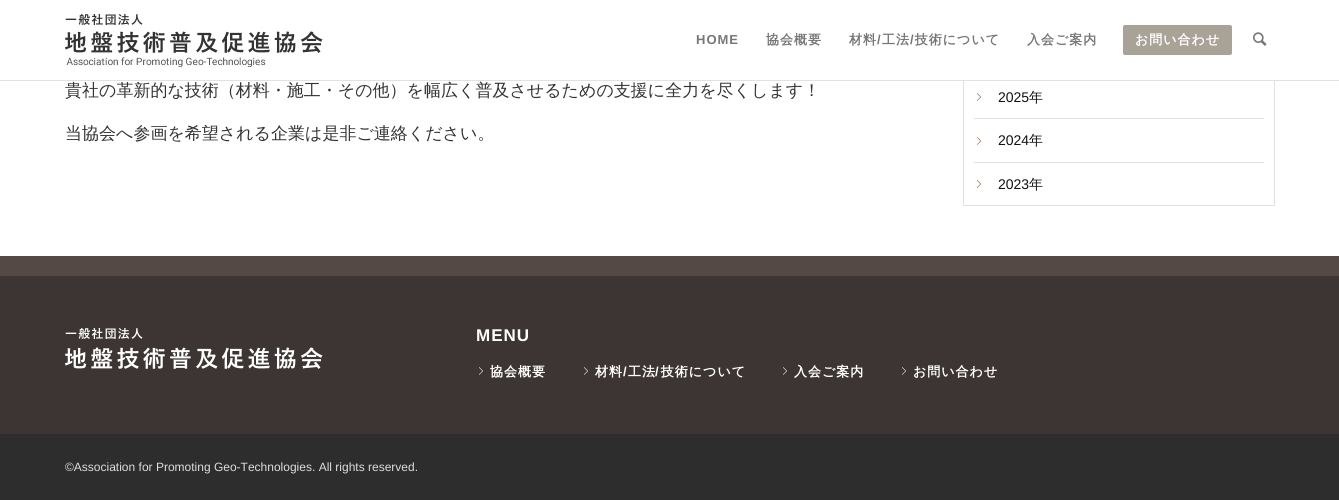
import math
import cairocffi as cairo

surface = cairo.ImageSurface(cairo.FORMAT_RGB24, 1339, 500)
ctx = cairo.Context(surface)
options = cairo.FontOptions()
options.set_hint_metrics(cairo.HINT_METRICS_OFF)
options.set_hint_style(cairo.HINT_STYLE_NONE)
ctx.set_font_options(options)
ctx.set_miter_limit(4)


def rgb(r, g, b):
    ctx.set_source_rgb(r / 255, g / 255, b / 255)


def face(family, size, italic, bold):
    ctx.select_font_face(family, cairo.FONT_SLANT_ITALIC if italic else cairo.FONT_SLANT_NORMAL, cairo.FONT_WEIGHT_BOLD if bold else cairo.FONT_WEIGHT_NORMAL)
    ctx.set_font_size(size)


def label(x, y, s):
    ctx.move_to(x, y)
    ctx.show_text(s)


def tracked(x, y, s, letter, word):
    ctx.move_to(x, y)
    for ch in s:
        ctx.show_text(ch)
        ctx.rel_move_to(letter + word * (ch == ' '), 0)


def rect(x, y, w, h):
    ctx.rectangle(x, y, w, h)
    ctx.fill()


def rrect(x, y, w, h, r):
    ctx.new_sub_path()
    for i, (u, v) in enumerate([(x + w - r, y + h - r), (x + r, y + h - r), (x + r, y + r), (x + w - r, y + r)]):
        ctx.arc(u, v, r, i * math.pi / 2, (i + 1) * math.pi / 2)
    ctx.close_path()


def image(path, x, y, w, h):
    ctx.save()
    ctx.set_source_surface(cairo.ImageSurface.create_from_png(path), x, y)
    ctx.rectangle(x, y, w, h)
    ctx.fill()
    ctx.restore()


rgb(255, 255, 255)
ctx.paint()
rgb(225, 225, 225)
rect(0, 80, 1339, 1)
image('image0.png', 65, 14, 258, 53)
face('Liberation Sans', 13, 0, 1)
rgb(119, 119, 119)
tracked(696, 44, 'HOME', 1, 0)
face('WenQuanYi Zen Hei', 13, 0, 1)
tracked(766, 44, '協会概要', 1, 0)
tracked(849, 44, '材料 工法 技術について', 1, 0)
face('Liberation Sans', 13, 0, 1)
tracked(877, 44, '/', 1, 0)
tracked(910, 44, '/', 1, 0)
face('WenQuanYi Zen Hei', 13, 0, 1)
tracked(1027, 44, '入会ご案内', 1, 0)
rgb(168, 162, 151)
rrect(1124, 26, 107, 28, 1)
ctx.fill_preserve()
ctx.stroke()
rgb(255, 255, 255)
tracked(1135, 44, 'お問い合わせ', 1, 0)
image('image1.png', 1253, 32, 14, 14)
face('WenQuanYi Zen Hei Medium', 17, 0, 0)
rgb(51, 51, 51)
label(65, 96, '貴社の革新的な技術（材料・施工・その他）を幅広く普及させるための支援に全力を尽くします！')
label(65, 139, '当協会へ参画を希望される企業は是非ご連絡ください。')
rgb(225, 225, 225)
rect(1274, 81, 1, 125)
rect(963, 205, 312, 1)
rect(963, 81, 1, 125)
rect(974, 118, 290, 1)
image('image2.png', 977, 93, 4, 8)
face('Liberation Sans', 14, 0, 0)
rgb(17, 17, 17)
label(998, 102, '2025')
face('WenQuanYi Zen Hei Medium', 14, 0, 0)
label(1029, 102, '年')
rgb(225, 225, 225)
rect(974, 162, 290, 1)
image('image2.png', 977, 137, 4, 8)
face('Liberation Sans', 14, 0, 0)
rgb(17, 17, 17)
label(998, 145, '2024')
face('WenQuanYi Zen Hei Medium', 14, 0, 0)
label(1029, 145, '年')
image('image2.png', 977, 180, 4, 8)
face('Liberation Sans', 14, 0, 0)
label(998, 189, '2023')
face('WenQuanYi Zen Hei Medium', 14, 0, 0)
label(1029, 189, '年')
rgb(60, 53, 51)
rect(0, 276, 1339, 158)
rgb(85, 73, 69)
rect(0, 256, 1339, 20)
image('image3.png', 65, 328, 258, 41)
face('Liberation Sans', 17, 0, 1)
rgb(255, 255, 255)
tracked(476, 341, 'MENU', 1, 0)
image('image4.png', 479, 367, 4, 8)
face('WenQuanYi Zen Hei', 13, 0, 1)
tracked(490, 376, '協会概要', 1, 0)
tracked(595, 376, '材料 工法 技術について', 1, 0)
image('image4.png', 584, 367, 4, 8)
face('Liberation Sans', 13, 0, 1)
tracked(623, 376, '/', 1, 0)
tracked(655, 376, '/', 1, 0)
image('image4.png', 783, 367, 4, 8)
face('WenQuanYi Zen Hei', 13, 0, 1)
tracked(794, 376, '入会ご案内', 1, 0)
image('image4.png', 902, 367, 4, 8)
tracked(913, 376, 'お問い合わせ', 1, 0)
rgb(45, 45, 45)
rect(0, 434, 1339, 66)
face('Liberation Sans', 12, 0, 0)
rgb(221, 221, 221)
label(65, 471, '©Association for Promoting Geo-Technologies. All rights reserved.')
surface.write_to_png('render.png')
